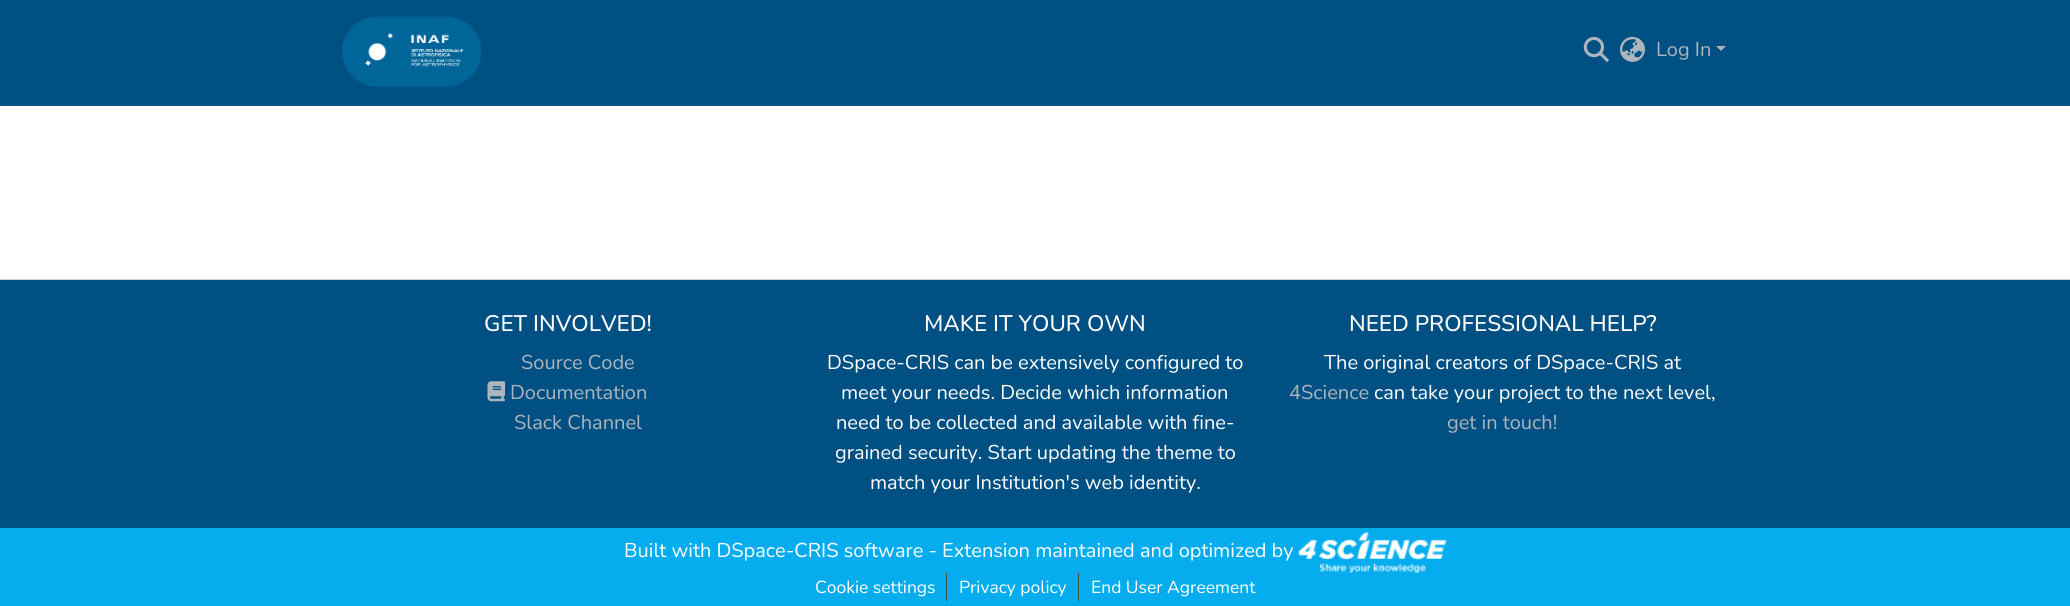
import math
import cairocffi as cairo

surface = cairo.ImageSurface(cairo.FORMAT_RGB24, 2070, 606)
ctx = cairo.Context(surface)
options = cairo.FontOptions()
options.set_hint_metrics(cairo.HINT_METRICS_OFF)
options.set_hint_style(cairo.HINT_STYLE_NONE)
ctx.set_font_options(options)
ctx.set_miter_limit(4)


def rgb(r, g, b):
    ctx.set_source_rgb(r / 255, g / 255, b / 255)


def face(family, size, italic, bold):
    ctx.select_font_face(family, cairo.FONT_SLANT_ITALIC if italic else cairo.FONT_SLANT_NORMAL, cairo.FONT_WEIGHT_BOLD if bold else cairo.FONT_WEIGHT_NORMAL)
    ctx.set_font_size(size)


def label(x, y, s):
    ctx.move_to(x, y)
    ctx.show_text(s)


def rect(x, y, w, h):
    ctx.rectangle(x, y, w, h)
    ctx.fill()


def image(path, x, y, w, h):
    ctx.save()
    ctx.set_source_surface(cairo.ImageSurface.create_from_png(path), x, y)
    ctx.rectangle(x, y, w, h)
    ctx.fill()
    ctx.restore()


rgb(255, 255, 255)
ctx.paint()
rgb(0, 80, 131)
rect(0, 0, 2070, 106)
image('image0.png', 342, 16, 140, 71)
image('image1.png', 1583, 36, 26, 26)
image('image2.png', 1620, 36, 25, 26)
face('Nunito', 20, 0, 0)
rgb(173, 181, 189)
label(1656, 56, 'Log In')
ctx.new_path()
ctx.move_to(1716, 46)
ctx.line_to(1726, 46)
ctx.line_to(1721, 51)
ctx.close_path()
ctx.fill()
rgb(5, 172, 238)
rect(0, 528, 2070, 78)
rgb(206, 212, 218)
rect(0, 279, 2070, 1)
rgb(0, 80, 131)
rect(0, 280, 2070, 248)
face('Nunito Medium', 22.5, 0, 0)
rgb(255, 255, 255)
label(484, 331, 'GET INVOLVED!')
face('Nunito', 20, 0, 0)
rgb(173, 181, 189)
label(521, 369, 'Source Code')
image('image3.png', 487, 381, 18, 21)
label(510, 399, 'Documentation')
label(514, 429, 'Slack Channel')
face('Nunito Medium', 22.5, 0, 0)
rgb(255, 255, 255)
label(924, 331, 'MAKE IT YOUR OWN')
face('Nunito', 20, 0, 0)
label(827, 369, 'DSpace-CRIS can be extensively configured to')
label(841, 399, 'meet your needs. Decide which information')
label(836, 429, 'need to be collected and available with fine-')
label(835, 459, 'grained security. Start updating the theme to')
label(870, 489, 'match your Institution\'s web identity.')
face('Nunito Medium', 22.5, 0, 0)
label(1349, 331, 'NEED PROFESSIONAL HELP?')
face('Nunito', 20, 0, 0)
label(1324, 369, 'The original creators of DSpace-CRIS at')
rgb(173, 181, 189)
label(1289, 399, '4Science')
rgb(255, 255, 255)
label(1374, 399, 'can take your project to the next level,')
rgb(173, 181, 189)
label(1447, 429, 'get in touch!')
rgb(255, 255, 255)
label(624, 557, 'Built with DSpace-CRIS software - Extension maintained and optimized by')
image('image4.png', 1298, 532, 149, 41)
face('Nunito', 17.5, 0, 0)
label(815, 593, 'Cookie settings')
rgb(73, 80, 87)
rect(946, 573, 1, 28)
rgb(255, 255, 255)
label(959, 593, 'Privacy policy')
rgb(73, 80, 87)
rect(1078, 573, 1, 28)
rgb(255, 255, 255)
label(1091, 593, 'End User Agreement')
surface.write_to_png('render.png')
